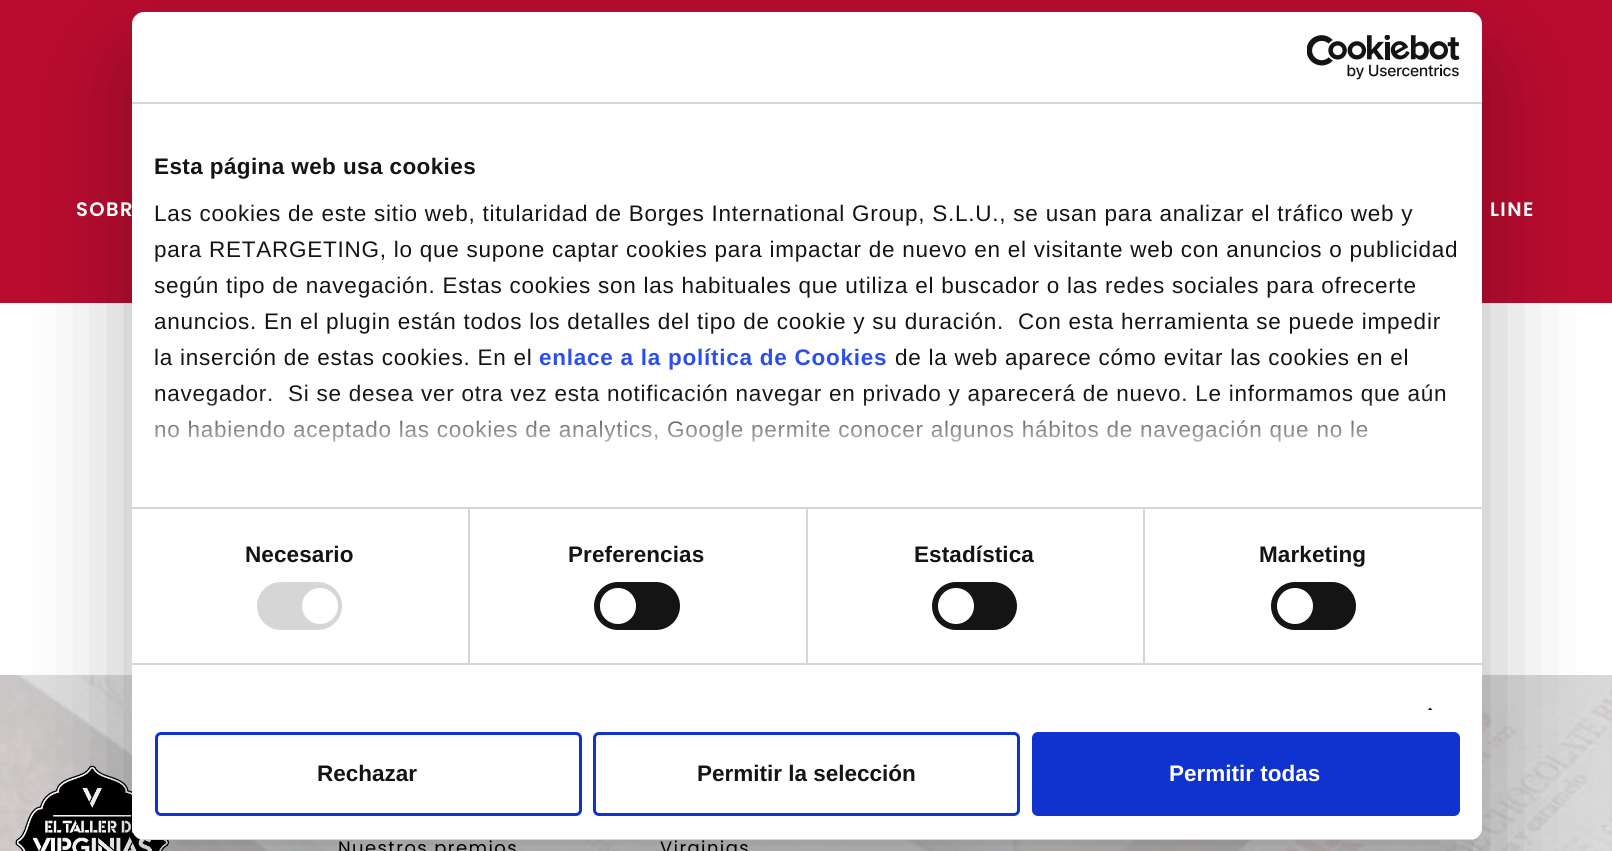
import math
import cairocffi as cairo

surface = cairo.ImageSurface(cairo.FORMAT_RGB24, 1612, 851)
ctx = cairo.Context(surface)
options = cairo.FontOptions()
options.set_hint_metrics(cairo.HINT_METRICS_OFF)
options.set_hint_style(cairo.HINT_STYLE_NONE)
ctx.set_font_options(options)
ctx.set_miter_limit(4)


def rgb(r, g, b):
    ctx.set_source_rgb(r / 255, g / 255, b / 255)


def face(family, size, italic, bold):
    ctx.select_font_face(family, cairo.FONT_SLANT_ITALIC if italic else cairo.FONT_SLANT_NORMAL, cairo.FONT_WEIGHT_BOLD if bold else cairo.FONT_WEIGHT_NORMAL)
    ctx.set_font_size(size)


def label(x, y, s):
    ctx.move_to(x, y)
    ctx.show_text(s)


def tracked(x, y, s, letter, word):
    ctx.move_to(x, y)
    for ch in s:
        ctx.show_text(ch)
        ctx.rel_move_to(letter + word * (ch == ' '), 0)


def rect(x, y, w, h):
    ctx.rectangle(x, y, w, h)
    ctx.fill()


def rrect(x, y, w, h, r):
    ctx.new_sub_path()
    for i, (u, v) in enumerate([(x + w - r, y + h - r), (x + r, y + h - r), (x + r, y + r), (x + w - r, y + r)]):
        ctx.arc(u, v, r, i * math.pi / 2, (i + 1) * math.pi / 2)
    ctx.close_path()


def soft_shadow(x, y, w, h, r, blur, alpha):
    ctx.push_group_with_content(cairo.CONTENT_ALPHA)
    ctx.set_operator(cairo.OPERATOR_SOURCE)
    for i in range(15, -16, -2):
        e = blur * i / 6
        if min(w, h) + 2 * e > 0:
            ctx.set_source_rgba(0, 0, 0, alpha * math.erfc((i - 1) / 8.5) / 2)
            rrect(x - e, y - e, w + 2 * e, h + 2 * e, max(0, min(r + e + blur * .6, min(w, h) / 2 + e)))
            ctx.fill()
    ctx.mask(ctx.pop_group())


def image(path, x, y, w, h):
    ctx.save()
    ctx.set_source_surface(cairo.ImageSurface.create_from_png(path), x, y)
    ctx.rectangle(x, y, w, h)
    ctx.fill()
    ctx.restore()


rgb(255, 255, 255)
ctx.paint()
rgb(186, 12, 47)
rect(0, 0, 1612, 303)
image('image1.png', 0, 675, 1612, 176)
image('image2.png', 15, 765, 154, 86)
rgb(0, 0, 0)
soft_shadow(132, 60, 1350, 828, 12, 51, 0.3)
rgb(255, 255, 255)
rrect(132, 12, 1350, 828, 12)
ctx.fill()
rgb(214, 214, 214)
rect(132, 102, 1350, 2)
image('image0.png', 1307, 35, 153, 45)
rect(132, 507, 1350, 2)
face('Liberation Sans', 22.5, 0, 1)
rgb(20, 20, 20)
tracked(154, 174, 'Esta página web usa cookies', 0.4, 0)
face('Liberation Sans', 22.5, 0, 0)
tracked(154, 221, 'Las cookies de este sitio web, titularidad de Borges International Group, S.L.U., se usan para analizar el tráfico web y', 0.75, 0)
tracked(154, 257, 'para RETARGETING, lo que supone captar cookies para impactar de nuevo en el visitante web con anuncios o publicidad', 0.75, 0)
tracked(154, 293, 'según tipo de navegación. Estas cookies son las habituales que utiliza el buscador o las redes sociales para ofrecerte', 0.75, 0)
tracked(154, 329, 'anuncios. En el plugin están todos los detalles del tipo de cookie y su duración.  Con esta herramienta se puede impedir', 0.75, 0)
tracked(154, 365, 'la inserción de estas cookies. En el', 0.75, 0)
face('Liberation Sans', 22.5, 0, 1)
rgb(42, 78, 239)
tracked(539, 365, 'enlace a la política de Cookies', 0.75, 0)
face('Liberation Sans', 22.5, 0, 0)
rgb(20, 20, 20)
tracked(895, 365, 'de la web aparece cómo evitar las cookies en el', 0.75, 0)
tracked(154, 401, 'navegador.  Si se desea ver otra vez esta notificación navegar en privado y aparecerá de nuevo. Le informamos que aún', 0.75, 0)
tracked(154, 437, 'no habiendo aceptado las cookies de analytics, Google permite conocer algunos hábitos de navegación que no le', 0.75, 0)
gradient = cairo.LinearGradient(797, 507, 797, 395)
gradient.add_color_stop_rgba(0, 1, 1, 1, 1)
gradient.add_color_stop_rgba(0.5, 1, 1, 1, 0.8)
gradient.add_color_stop_rgba(1, 1, 1, 1, 0)
ctx.set_source(gradient)
rect(155, 397, 1290, 45)
rgb(214, 214, 214)
rect(132, 663, 1350, 2)
rect(468, 509, 2, 154)
face('Liberation Sans', 22.5, 0, 1)
rgb(20, 20, 20)
tracked(245, 562, 'Necesario', 0.1, 0)
rgb(214, 214, 214)
rrect(257, 582, 85, 48, 24)
ctx.fill()
rgb(255, 255, 255)
ctx.arc(320, 606, 18, 0, 2 * math.pi)
ctx.fill()
rgb(214, 214, 214)
rect(806, 509, 2, 154)
rgb(20, 20, 20)
tracked(568, 562, 'Preferencias', 0.1, 0)
rrect(594, 582, 86, 48, 24)
ctx.fill()
rgb(255, 255, 255)
ctx.arc(618, 606, 18, 0, 2 * math.pi)
ctx.fill()
rgb(214, 214, 214)
rect(1143, 509, 2, 154)
rgb(20, 20, 20)
tracked(914, 562, 'Estadística', 0.1, 0)
rrect(932, 582, 85, 48, 24)
ctx.fill()
rgb(255, 255, 255)
ctx.arc(956, 606, 18, 0, 2 * math.pi)
ctx.fill()
rgb(20, 20, 20)
tracked(1259, 562, 'Marketing', 0.1, 0)
rrect(1271, 582, 85, 48, 24)
ctx.fill()
rgb(255, 255, 255)
ctx.arc(1295, 606, 18, 0, 2 * math.pi)
ctx.fill()
ctx.save()
ctx.rectangle(132, 104, 1350, 606)
ctx.clip()
rgb(20, 20, 20)
ctx.new_path()
ctx.move_to(1430, 707.5)
ctx.line_to(1439, 716.5)
ctx.line_to(1436.5, 718.5)
ctx.line_to(1428, 710)
ctx.close_path()
ctx.fill()
ctx.restore()
ctx.save()
rrect(132, 12, 1350, 828, 12)
ctx.clip()
rgb(214, 214, 214)
rect(132, 839, 1350, 1)
ctx.restore()
rrect(156.5, 733.5, 424, 81, 4.5)
rgb(16, 50, 207)
ctx.set_line_width(3)
ctx.stroke()
rgb(20, 20, 20)
label(317, 781, 'Rechazar')
rrect(594.5, 733.5, 424, 81, 4.5)
rgb(16, 50, 207)
ctx.stroke()
rgb(20, 20, 20)
label(697, 781, 'Permitir la selección')
rgb(16, 50, 207)
rrect(1033.5, 733.5, 425, 81, 4.5)
ctx.fill_preserve()
ctx.stroke()
rgb(255, 255, 255)
label(1169, 781, 'Permitir todas')
face('Poppins SemiBold', 19.5, 0, 0)
tracked(76, 216, 'SOBR', 1.4, 0)
tracked(1490, 216, 'LINE', 1.4, 0)
face('Poppins', 18, 0, 0)
rgb(0, 0, 0)
tracked(338, 854, 'Nuestros premios', 1.4, 0)
tracked(660, 854, 'Virginias', 1.4, 0)
surface.write_to_png('render.png')
